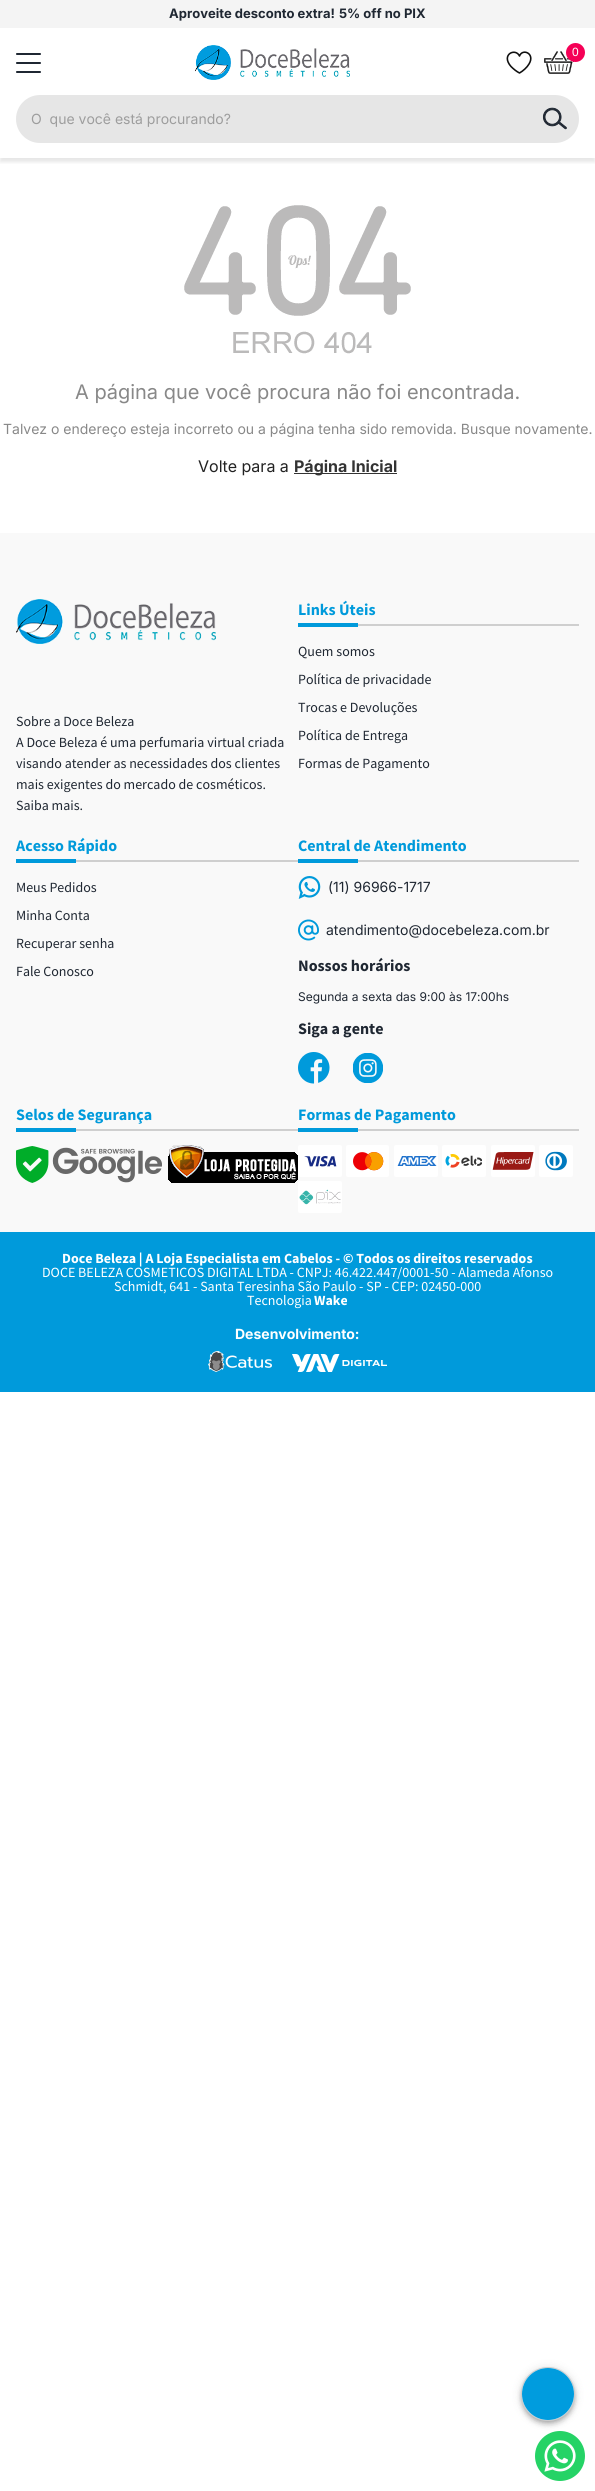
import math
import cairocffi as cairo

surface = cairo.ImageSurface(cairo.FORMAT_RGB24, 595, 2491)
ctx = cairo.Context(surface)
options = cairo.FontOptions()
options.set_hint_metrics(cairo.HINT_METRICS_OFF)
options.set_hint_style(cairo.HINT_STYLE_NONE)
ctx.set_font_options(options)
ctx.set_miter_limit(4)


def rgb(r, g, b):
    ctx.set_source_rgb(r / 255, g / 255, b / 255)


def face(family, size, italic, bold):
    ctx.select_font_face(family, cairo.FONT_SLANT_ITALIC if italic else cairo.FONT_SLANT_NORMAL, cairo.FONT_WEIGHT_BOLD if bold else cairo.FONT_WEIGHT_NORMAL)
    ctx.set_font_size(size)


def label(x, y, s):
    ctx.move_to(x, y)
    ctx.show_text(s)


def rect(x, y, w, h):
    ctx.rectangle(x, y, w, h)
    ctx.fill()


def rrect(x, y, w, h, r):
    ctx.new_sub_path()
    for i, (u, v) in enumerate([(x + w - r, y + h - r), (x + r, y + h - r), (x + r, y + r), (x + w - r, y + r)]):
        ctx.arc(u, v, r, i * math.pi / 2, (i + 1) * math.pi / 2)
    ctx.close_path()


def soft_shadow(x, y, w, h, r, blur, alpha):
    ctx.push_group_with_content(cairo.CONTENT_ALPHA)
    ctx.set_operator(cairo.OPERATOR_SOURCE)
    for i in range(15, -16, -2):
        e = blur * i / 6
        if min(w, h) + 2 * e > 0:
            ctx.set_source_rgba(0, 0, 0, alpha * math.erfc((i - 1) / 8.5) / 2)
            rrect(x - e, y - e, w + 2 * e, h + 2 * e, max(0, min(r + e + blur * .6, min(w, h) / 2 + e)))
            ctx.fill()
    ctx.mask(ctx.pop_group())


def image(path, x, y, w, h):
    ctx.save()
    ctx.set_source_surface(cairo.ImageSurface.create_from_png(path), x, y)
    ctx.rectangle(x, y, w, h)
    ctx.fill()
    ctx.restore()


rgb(255, 255, 255)
ctx.paint()
rgb(244, 244, 244)
rect(0, 0, 595, 28)
face('Inter', 13, 0, 1)
rgb(31, 39, 50)
label(169, 18, 'Aproveite desconto extra!')
label(339, 18, '5% off no PIX')
ctx.save()
ctx.rectangle(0, 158, 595, 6)
ctx.clip()
rgb(0, 0, 0)
soft_shadow(0, 32, 595, 130, 0, 2, 0.1)
ctx.restore()
image('image0.png', 195, 45, 155, 35)
ctx.new_path()
ctx.move_to(519.5, 73)
ctx.curve_to(516.5, 71.5, 513.5, 69, 511, 66.5)
ctx.curve_to(500.5, 54.5, 515.5, 47.5, 519.5, 56)
ctx.curve_to(522.5, 48, 535.5, 53.5, 529, 64)
ctx.curve_to(527, 67.5, 523, 71, 519.5, 73)
ctx.close_path()
rgb(15, 15, 15)
ctx.set_line_width(1.6)
ctx.set_line_cap(cairo.LINE_CAP_ROUND)
ctx.set_line_join(cairo.LINE_JOIN_ROUND)
ctx.stroke()
image('image1.png', 544, 51, 30, 23)
rgb(245, 0, 86)
ctx.arc(575.5, 52.5, 9.5, 0, 2 * math.pi)
ctx.fill()
face('Liberation Sans', 12, 0, 0)
rgb(255, 255, 255)
label(572, 56, '0')
image('image2.png', 16, 53, 25, 20)
rgb(230, 230, 230)
rrect(16, 95, 563, 48, 24)
ctx.fill()
face('Inter', 14, 0, 0)
rgb(157, 157, 157)
label(31, 124, 'O  que você está procurando?')
image('image3.png', 542, 107, 25, 23)
image('image4.png', 184, 205, 227, 149)
face('Inter', 20, 0, 0)
rgb(136, 136, 136)
label(75, 399, 'A página que você procura não foi encontrada.')
face('Inter', 14, 0, 0)
label(3, 434, 'Talvez o endereço esteja incorreto ou a página tenha sido removida. Busque novamente.')
face('Inter', 16, 0, 0)
rgb(34, 34, 34)
label(198, 472, 'Volte para a')
rgb(51, 51, 51)
rect(294, 473, 103, 1)
face('Inter', 16, 0, 1)
label(294, 472, 'Página Inicial')
rgb(249, 249, 249)
rect(0, 533, 595, 699)
image('image5.png', 16, 599, 200, 45)
face('Source Sans Pro', 14, 0, 0)
rgb(31, 39, 50)
label(16, 726, 'Sobre a Doce Beleza')
label(16, 747, 'A Doce Beleza é uma perfumaria virtual criada')
label(16, 768, 'visando atender as necessidades dos clientes')
label(16, 789, 'mais exigentes do mercado de cosméticos.')
label(16, 810, 'Saiba mais.')
face('Source Sans Pro', 16, 0, 1)
rgb(0, 154, 219)
label(298, 615, 'Links Úteis')
rect(298, 623, 60, 4)
rgb(207, 207, 207)
rect(358, 624, 221, 2)
face('Source Sans Pro', 14, 0, 0)
rgb(31, 39, 50)
label(298, 656, 'Quem somos')
label(298, 684, 'Política de privacidade')
label(298, 712, 'Trocas e Devoluções')
label(298, 740, 'Política de Entrega')
label(298, 768, 'Formas de Pagamento')
face('Source Sans Pro', 16, 0, 1)
rgb(0, 154, 219)
label(16, 851, 'Acesso Rápido')
rect(16, 859, 60, 4)
rgb(207, 207, 207)
rect(76, 860, 222, 2)
face('Source Sans Pro', 14, 0, 0)
rgb(31, 39, 50)
label(16, 892, 'Meus Pedidos')
label(16, 920, 'Minha Conta')
label(16, 948, 'Recuperar senha')
label(16, 976, 'Fale Conosco')
face('Source Sans Pro', 16, 0, 1)
rgb(0, 154, 219)
label(298, 851, 'Central de Atendimento')
rect(298, 859, 60, 4)
rgb(207, 207, 207)
rect(358, 860, 221, 2)
image('image6.png', 298, 876, 23, 23)
face('Inter', 14, 0, 0)
rgb(31, 39, 50)
label(328, 892, '(11) 96966-1717')
image('image7.png', 298, 919, 21, 22)
label(326, 935, 'atendimento@docebeleza.com.br')
face('Source Sans Pro', 16, 0, 1)
label(298, 971, 'Nossos horários')
face('Inter', 12, 0, 0)
label(298, 1001, 'Segunda a sexta das 9:00 às 17:00hs')
face('Source Sans Pro', 16, 0, 1)
label(298, 1034, 'Siga a gente')
image('image8.png', 298, 1052, 32, 32)
image('image9.png', 353, 1053, 30, 30)
rgb(0, 154, 219)
label(16, 1120, 'Selos de Segurança')
rect(16, 1128, 60, 4)
rgb(207, 207, 207)
rect(76, 1129, 222, 2)
image('image10.png', 16, 1146, 146, 37)
image('image11.png', 168, 1145, 130, 38)
rgb(0, 154, 219)
label(298, 1120, 'Formas de Pagamento')
rect(298, 1128, 60, 4)
rgb(207, 207, 207)
rect(358, 1129, 221, 2)
image('image12.png', 298, 1145, 44, 32)
image('image13.png', 346, 1145, 43, 32)
image('image14.png', 394, 1145, 44, 32)
image('image15.png', 442, 1145, 44, 32)
image('image16.png', 491, 1145, 44, 32)
image('image17.png', 539, 1145, 34, 32)
image('image18.png', 298, 1181, 44, 32)
rgb(0, 154, 219)
rect(0, 1232, 595, 160)
face('Source Sans Pro', 14, 0, 1)
rgb(255, 255, 255)
label(62, 1263, 'Doce Beleza | A Loja Especialista em Cabelos - © Todos os direitos reservados')
face('Source Sans Pro', 14, 0, 0)
label(42, 1277, 'DOCE BELEZA COSMETICOS DIGITAL LTDA - CNPJ: 46.422.447/0001-50 - Alameda Afonso')
label(114, 1291, 'Schmidt, 641 - Santa Teresinha São Paulo - SP - CEP: 02450-000')
label(247, 1305, 'Tecnologia')
face('Source Sans Pro', 14, 0, 1)
label(314, 1305, 'Wake')
face('Inter', 14, 0, 1)
label(235, 1339, 'Desenvolvimento:')
image('image19.png', 208, 1351, 64, 21)
image('image20.png', 292, 1354, 95, 18)
image('image21.png', 535, 2431, 50, 50)
rgb(0, 0, 0)
soft_shadow(521, 2368, 54, 54, 27, 5, 0.12)
soft_shadow(521, 2371, 54, 54, 27, 2.5, 0.14)
soft_shadow(522, 2370, 52, 52, 26, 2, 0.2)
rgb(255, 255, 255)
ctx.arc(548, 2394, 27, 0, 2 * math.pi)
ctx.fill()
ctx.arc(548, 2394, 26.5, 0, 2 * math.pi)
ctx.set_source_rgba(0, 0, 0, 0.2)
ctx.set_line_width(1)
ctx.set_line_cap(cairo.LINE_CAP_BUTT)
ctx.set_line_join(cairo.LINE_JOIN_MITER)
ctx.stroke()
rgb(0, 156, 222)
ctx.arc(548, 2394, 26, 0, 2 * math.pi)
ctx.fill()
surface.write_to_png('render.png')
